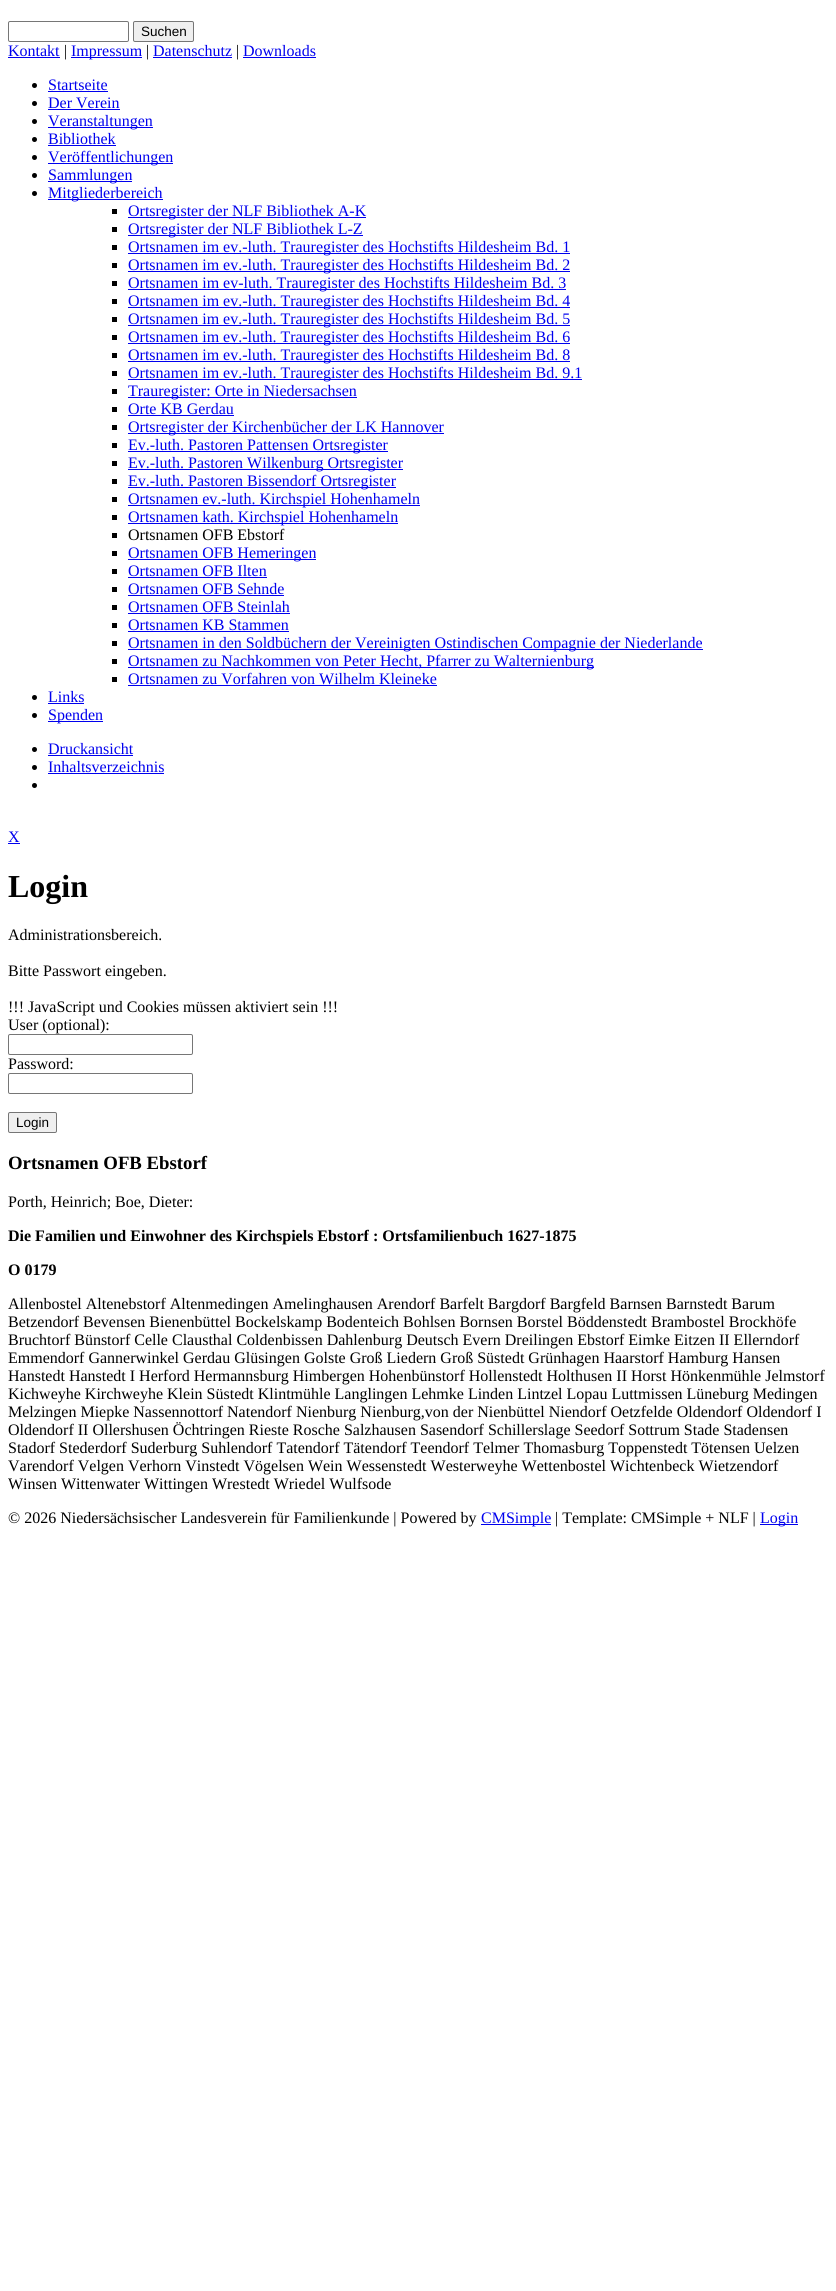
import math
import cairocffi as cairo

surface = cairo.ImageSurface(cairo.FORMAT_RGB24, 836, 2291)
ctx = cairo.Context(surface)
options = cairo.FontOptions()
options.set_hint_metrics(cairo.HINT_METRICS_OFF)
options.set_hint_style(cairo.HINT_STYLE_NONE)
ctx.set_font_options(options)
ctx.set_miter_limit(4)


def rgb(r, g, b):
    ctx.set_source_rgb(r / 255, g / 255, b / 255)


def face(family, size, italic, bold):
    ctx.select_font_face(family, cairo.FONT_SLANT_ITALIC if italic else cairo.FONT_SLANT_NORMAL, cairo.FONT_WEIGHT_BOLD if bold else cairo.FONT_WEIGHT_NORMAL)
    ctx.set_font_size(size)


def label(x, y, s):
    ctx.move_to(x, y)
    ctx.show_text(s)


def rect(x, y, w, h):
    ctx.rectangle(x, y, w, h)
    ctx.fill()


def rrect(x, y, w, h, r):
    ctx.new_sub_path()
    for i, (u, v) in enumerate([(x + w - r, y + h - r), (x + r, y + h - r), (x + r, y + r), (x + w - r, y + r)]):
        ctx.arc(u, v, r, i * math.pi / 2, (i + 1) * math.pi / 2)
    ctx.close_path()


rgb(255, 255, 255)
ctx.paint()
rrect(8.5, 21.5, 120, 20, 1.5)
rgb(118, 118, 118)
ctx.set_line_width(1)
ctx.stroke()
rgb(239, 239, 239)
rrect(133.5, 21.5, 60, 20, 1.5)
ctx.fill_preserve()
rgb(118, 118, 118)
ctx.stroke()
face('Liberation Sans', 13.5, 0, 0)
rgb(0, 0, 0)
label(141, 36, 'Suchen')
face('Liberation Serif', 16, 0, 0)
rgb(0, 0, 238)
label(8, 56, 'Kontakt')
rect(8, 57, 52, 1)
rgb(0, 0, 0)
label(64, 56, '|')
rgb(0, 0, 238)
rect(71, 57, 71, 1)
label(71, 56, 'Impressum')
rgb(0, 0, 0)
label(146, 56, '|')
rgb(0, 0, 238)
label(153, 56, 'Datenschutz')
rect(153, 57, 79, 1)
rgb(0, 0, 0)
label(236, 56, '|')
rgb(0, 0, 238)
label(243, 56, 'Downloads')
rect(243, 57, 73, 1)
rgb(0, 0, 0)
ctx.new_path()
ctx.arc(34.5, 85.5, 2.5, 0, 2 * math.pi)
ctx.fill()
rgb(0, 0, 238)
label(48, 90, 'Startseite')
rect(48, 91, 60, 1)
rgb(0, 0, 0)
ctx.new_path()
ctx.arc(34.5, 103.5, 2.5, 0, 2 * math.pi)
ctx.fill()
rgb(0, 0, 238)
label(48, 108, 'Der Verein')
rect(48, 109, 72, 1)
rgb(0, 0, 0)
ctx.new_path()
ctx.arc(34.5, 121.5, 2.5, 0, 2 * math.pi)
ctx.fill()
rgb(0, 0, 238)
rect(48, 127, 105, 1)
label(48, 126, 'Veranstaltungen')
rgb(0, 0, 0)
ctx.new_path()
ctx.arc(34.5, 139.5, 2.5, 0, 2 * math.pi)
ctx.fill()
rgb(0, 0, 238)
label(48, 144, 'Bibliothek')
rect(48, 145, 68, 1)
rgb(0, 0, 0)
ctx.new_path()
ctx.arc(34.5, 157.5, 2.5, 0, 2 * math.pi)
ctx.fill()
rgb(0, 0, 238)
rect(48, 163, 125, 1)
label(48, 162, 'Veröffentlichungen')
rgb(0, 0, 0)
ctx.new_path()
ctx.arc(34.5, 175.5, 2.5, 0, 2 * math.pi)
ctx.fill()
rgb(0, 0, 238)
rect(48, 181, 84, 1)
label(48, 180, 'Sammlungen')
rgb(0, 0, 0)
ctx.new_path()
ctx.arc(34.5, 193.5, 2.5, 0, 2 * math.pi)
ctx.fill()
rgb(0, 0, 238)
rect(48, 199, 115, 1)
label(48, 198, 'Mitgliederbereich')
rgb(0, 0, 0)
rect(112, 209, 5, 5)
rgb(0, 0, 238)
rect(128, 217, 238, 1)
label(128, 216, 'Ortsregister der NLF Bibliothek A-K')
rgb(0, 0, 0)
rect(112, 227, 5, 5)
rgb(0, 0, 238)
rect(128, 235, 235, 1)
label(128, 234, 'Ortsregister der NLF Bibliothek L-Z')
rgb(0, 0, 0)
rect(112, 245, 5, 5)
rgb(0, 0, 238)
rect(128, 253, 442, 1)
label(128, 252, 'Ortsnamen im ev.-luth. Trauregister des Hochstifts Hildesheim Bd. 1')
rgb(0, 0, 0)
rect(112, 263, 5, 5)
rgb(0, 0, 238)
rect(128, 271, 442, 1)
label(128, 270, 'Ortsnamen im ev.-luth. Trauregister des Hochstifts Hildesheim Bd. 2')
rgb(0, 0, 0)
rect(112, 281, 5, 5)
rgb(0, 0, 238)
rect(128, 289, 438, 1)
label(128, 288, 'Ortsnamen im ev-luth. Trauregister des Hochstifts Hildesheim Bd. 3')
rgb(0, 0, 0)
rect(112, 299, 5, 5)
rgb(0, 0, 238)
rect(128, 307, 442, 1)
label(128, 306, 'Ortsnamen im ev.-luth. Trauregister des Hochstifts Hildesheim Bd. 4')
rgb(0, 0, 0)
rect(112, 317, 5, 5)
rgb(0, 0, 238)
rect(128, 325, 442, 1)
label(128, 324, 'Ortsnamen im ev.-luth. Trauregister des Hochstifts Hildesheim Bd. 5')
rgb(0, 0, 0)
rect(112, 335, 5, 5)
rgb(0, 0, 238)
rect(128, 343, 442, 1)
label(128, 342, 'Ortsnamen im ev.-luth. Trauregister des Hochstifts Hildesheim Bd. 6')
rgb(0, 0, 0)
rect(112, 353, 5, 5)
rgb(0, 0, 238)
rect(128, 361, 442, 1)
label(128, 360, 'Ortsnamen im ev.-luth. Trauregister des Hochstifts Hildesheim Bd. 8')
rgb(0, 0, 0)
rect(112, 371, 5, 5)
rgb(0, 0, 238)
rect(128, 379, 454, 1)
label(128, 378, 'Ortsnamen im ev.-luth. Trauregister des Hochstifts Hildesheim Bd. 9.1')
rgb(0, 0, 0)
rect(112, 389, 5, 5)
rgb(0, 0, 238)
rect(128, 397, 229, 1)
label(128, 396, 'Trauregister: Orte in Niedersachsen')
rgb(0, 0, 0)
rect(112, 407, 5, 5)
rgb(0, 0, 238)
label(128, 414, 'Orte KB Gerdau')
rect(128, 415, 106, 1)
rgb(0, 0, 0)
rect(112, 425, 5, 5)
rgb(0, 0, 238)
rect(128, 433, 316, 1)
label(128, 432, 'Ortsregister der Kirchenbücher der LK Hannover')
rgb(0, 0, 0)
rect(112, 443, 5, 5)
rgb(0, 0, 238)
rect(128, 451, 260, 1)
label(128, 450, 'Ev.-luth. Pastoren Pattensen Ortsregister')
rgb(0, 0, 0)
rect(112, 461, 5, 5)
rgb(0, 0, 238)
rect(128, 469, 275, 1)
label(128, 468, 'Ev.-luth. Pastoren Wilkenburg Ortsregister')
rgb(0, 0, 0)
rect(112, 479, 5, 5)
rgb(0, 0, 238)
rect(128, 487, 268, 1)
label(128, 486, 'Ev.-luth. Pastoren Bissendorf Ortsregister')
rgb(0, 0, 0)
rect(112, 497, 5, 5)
rgb(0, 0, 238)
rect(128, 505, 292, 1)
label(128, 504, 'Ortsnamen ev.-luth. Kirchspiel Hohenhameln')
rgb(0, 0, 0)
rect(112, 515, 5, 5)
rgb(0, 0, 238)
rect(128, 523, 270, 1)
label(128, 522, 'Ortsnamen kath. Kirchspiel Hohenhameln')
rgb(0, 0, 0)
rect(112, 533, 5, 5)
label(128, 540, 'Ortsnamen OFB Ebstorf')
rect(112, 551, 5, 5)
rgb(0, 0, 238)
rect(128, 559, 188, 1)
label(128, 558, 'Ortsnamen OFB Hemeringen')
rgb(0, 0, 0)
rect(112, 569, 5, 5)
rgb(0, 0, 238)
label(128, 576, 'Ortsnamen OFB Ilten')
rect(128, 577, 139, 1)
rgb(0, 0, 0)
rect(112, 587, 5, 5)
rgb(0, 0, 238)
label(128, 594, 'Ortsnamen OFB Sehnde')
rect(128, 595, 156, 1)
rgb(0, 0, 0)
rect(112, 605, 5, 5)
rgb(0, 0, 238)
label(128, 612, 'Ortsnamen OFB Steinlah')
rect(128, 613, 162, 1)
rgb(0, 0, 0)
rect(112, 623, 5, 5)
rgb(0, 0, 238)
label(128, 630, 'Ortsnamen KB Stammen')
rect(128, 631, 161, 1)
rgb(0, 0, 0)
rect(112, 641, 5, 5)
rgb(0, 0, 238)
rect(128, 649, 575, 1)
label(128, 648, 'Ortsnamen in den Soldbüchern der Vereinigten Ostindischen Compagnie der Niederlande')
rgb(0, 0, 0)
rect(112, 659, 5, 5)
rgb(0, 0, 238)
rect(128, 667, 466, 1)
label(128, 666, 'Ortsnamen zu Nachkommen von Peter Hecht, Pfarrer zu Walternienburg')
rgb(0, 0, 0)
rect(112, 677, 5, 5)
rgb(0, 0, 238)
label(128, 684, 'Ortsnamen zu Vorfahren von Wilhelm Kleineke')
rect(128, 685, 309, 1)
rgb(0, 0, 0)
ctx.new_path()
ctx.arc(34.5, 697.5, 2.5, 0, 2 * math.pi)
ctx.fill()
rgb(0, 0, 238)
label(48, 702, 'Links')
rect(48, 703, 36, 1)
rgb(0, 0, 0)
ctx.new_path()
ctx.arc(34.5, 715.5, 2.5, 0, 2 * math.pi)
ctx.fill()
rgb(0, 0, 238)
rect(48, 721, 55, 1)
label(48, 720, 'Spenden')
rgb(0, 0, 0)
ctx.new_path()
ctx.arc(34.5, 749.5, 2.5, 0, 2 * math.pi)
ctx.fill()
rgb(0, 0, 238)
label(48, 754, 'Druckansicht')
rect(48, 755, 85, 1)
rgb(0, 0, 0)
ctx.new_path()
ctx.arc(34.5, 767.5, 2.5, 0, 2 * math.pi)
ctx.fill()
rgb(0, 0, 238)
label(48, 772, 'Inhaltsverzeichnis')
rect(48, 773, 116, 1)
rgb(0, 0, 0)
ctx.new_path()
ctx.arc(34.5, 785.5, 2.5, 0, 2 * math.pi)
ctx.fill()
rgb(0, 0, 238)
label(8, 842, 'X')
rect(8, 843, 12, 1)
face('Liberation Serif', 32, 0, 1)
rgb(0, 0, 0)
label(8, 897, 'Login')
face('Liberation Serif', 16, 0, 0)
label(8, 940, 'Administrationsbereich.')
label(8, 976, 'Bitte Passwort eingeben.')
label(8, 1012, '!!! JavaScript und Cookies müssen aktiviert sein !!!')
label(8, 1030, 'User (optional):')
rrect(8.5, 1034.5, 184, 20, 1.5)
rgb(118, 118, 118)
ctx.stroke()
rgb(0, 0, 0)
label(8, 1069, 'Password:')
rrect(8.5, 1073.5, 184, 20, 1.5)
rgb(118, 118, 118)
ctx.stroke()
rgb(239, 239, 239)
rrect(8.5, 1112.5, 48, 20, 1.5)
ctx.fill_preserve()
rgb(118, 118, 118)
ctx.stroke()
face('Liberation Sans', 13.5, 0, 0)
rgb(0, 0, 0)
label(16, 1127, 'Login')
face('Liberation Serif', 18.75, 0, 1)
label(8, 1169, 'Ortsnamen OFB Ebstorf')
face('Liberation Serif', 16, 0, 0)
label(8, 1207, 'Porth, Heinrich; Boe, Dieter:')
face('Liberation Serif', 16, 0, 1)
label(8, 1241, 'Die Familien und Einwohner des Kirchspiels Ebstorf : Ortsfamilienbuch 1627-1875')
label(8, 1275, 'O 0179')
face('Liberation Serif', 16, 0, 0)
label(8, 1309, 'Allenbostel Altenebstorf Altenmedingen Amelinghausen Arendorf Barfelt Bargdorf Bargfeld Barnsen Barnstedt Barum')
label(8, 1327, 'Betzendorf Bevensen Bienenbüttel Bockelskamp Bodenteich Bohlsen Bornsen Borstel Böddenstedt Brambostel Brockhöfe')
label(8, 1345, 'Bruchtorf Bünstorf Celle Clausthal Coldenbissen Dahlenburg Deutsch Evern Dreilingen Ebstorf Eimke Eitzen II Ellerndorf')
label(8, 1363, 'Emmendorf Gannerwinkel Gerdau Glüsingen Golste Groß Liedern Groß Süstedt Grünhagen Haarstorf Hamburg Hansen')
label(8, 1381, 'Hanstedt Hanstedt I Herford Hermannsburg Himbergen Hohenbünstorf Hollenstedt Holthusen II Horst Hönkenmühle Jelmstorf')
label(8, 1399, 'Kichweyhe Kirchweyhe Klein Süstedt Klintmühle Langlingen Lehmke Linden Lintzel Lopau Luttmissen Lüneburg Medingen')
label(8, 1417, 'Melzingen Miepke Nassennottorf Natendorf Nienburg Nienburg,von der Nienbüttel Niendorf Oetzfelde Oldendorf Oldendorf I')
label(8, 1435, 'Oldendorf II Ollershusen Öchtringen Rieste Rosche Salzhausen Sasendorf Schillerslage Seedorf Sottrum Stade Stadensen')
label(8, 1453, 'Stadorf Stederdorf Suderburg Suhlendorf Tatendorf Tätendorf Teendorf Telmer Thomasburg Toppenstedt Tötensen Uelzen')
label(8, 1471, 'Varendorf Velgen Verhorn Vinstedt Vögelsen Wein Wessenstedt Westerweyhe Wettenbostel Wichtenbeck Wietzendorf')
label(8, 1489, 'Winsen Wittenwater Wittingen Wrestedt Wriedel Wulfsode')
label(8, 1523, '© 2026 Niedersächsischer Landesverein für Familienkunde | Powered by')
rgb(0, 0, 238)
rect(481, 1524, 70, 1)
label(481, 1523, 'CMSimple')
rgb(0, 0, 0)
label(555, 1523, '| Template: CMSimple + NLF |')
rgb(0, 0, 238)
rect(760, 1524, 38, 1)
label(760, 1523, 'Login')
surface.write_to_png('render.png')
